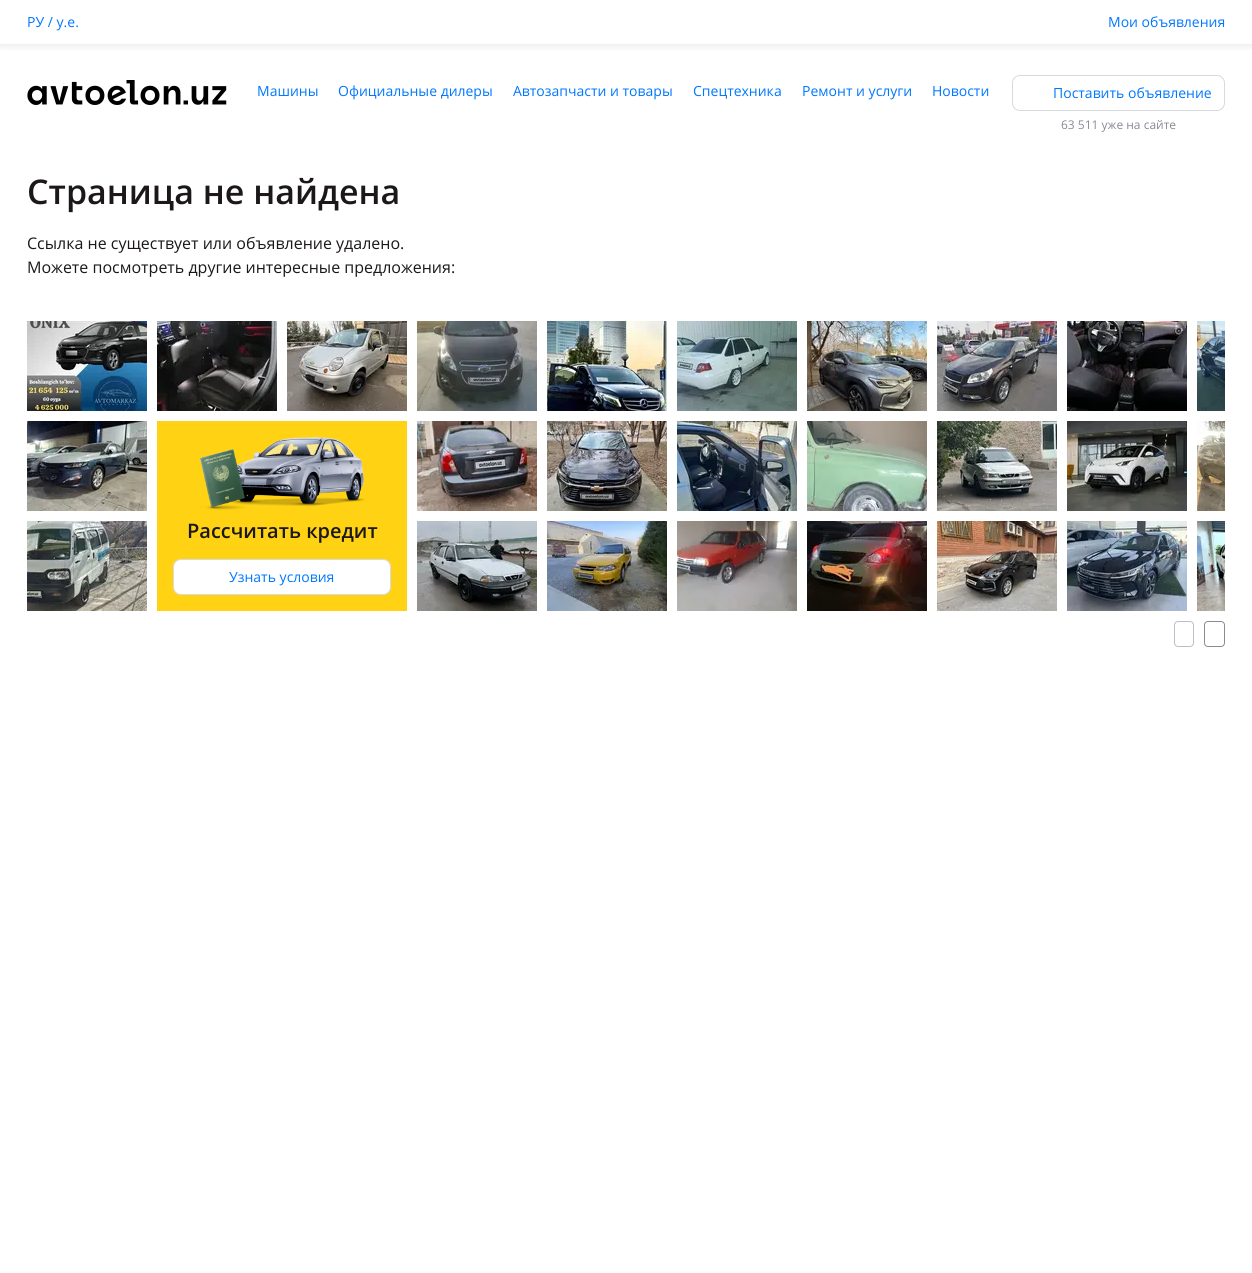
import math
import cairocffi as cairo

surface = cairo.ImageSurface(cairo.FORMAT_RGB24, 1252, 1273)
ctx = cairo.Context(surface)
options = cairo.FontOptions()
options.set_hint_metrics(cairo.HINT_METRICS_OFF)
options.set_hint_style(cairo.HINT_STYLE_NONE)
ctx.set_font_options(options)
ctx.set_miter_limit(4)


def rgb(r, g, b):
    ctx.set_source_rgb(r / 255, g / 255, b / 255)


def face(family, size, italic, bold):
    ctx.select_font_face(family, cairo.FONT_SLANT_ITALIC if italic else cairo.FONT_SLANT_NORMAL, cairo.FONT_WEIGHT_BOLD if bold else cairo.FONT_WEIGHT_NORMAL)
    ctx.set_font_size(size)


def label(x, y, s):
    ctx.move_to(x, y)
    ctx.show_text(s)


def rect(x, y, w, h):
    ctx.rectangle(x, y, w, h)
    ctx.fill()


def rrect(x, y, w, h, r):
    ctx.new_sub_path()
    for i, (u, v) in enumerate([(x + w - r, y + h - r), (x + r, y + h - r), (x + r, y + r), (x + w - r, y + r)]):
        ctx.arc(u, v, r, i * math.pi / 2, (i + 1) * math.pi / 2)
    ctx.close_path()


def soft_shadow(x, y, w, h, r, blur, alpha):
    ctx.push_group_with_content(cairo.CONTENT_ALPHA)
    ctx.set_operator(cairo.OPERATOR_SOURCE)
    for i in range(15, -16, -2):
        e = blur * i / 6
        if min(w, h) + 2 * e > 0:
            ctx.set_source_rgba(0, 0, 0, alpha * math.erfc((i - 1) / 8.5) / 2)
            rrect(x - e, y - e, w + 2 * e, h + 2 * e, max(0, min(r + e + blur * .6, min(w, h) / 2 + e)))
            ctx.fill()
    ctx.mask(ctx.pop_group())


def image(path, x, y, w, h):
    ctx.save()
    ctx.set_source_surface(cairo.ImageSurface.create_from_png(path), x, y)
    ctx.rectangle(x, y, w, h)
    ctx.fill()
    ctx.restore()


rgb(255, 255, 255)
ctx.paint()
ctx.save()
ctx.rectangle(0, 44, 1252, 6)
ctx.clip()
rgb(28, 24, 25)
soft_shadow(0, 2, 1252, 44, 0, 5, 0.1)
ctx.restore()
face('Open Sans', 14, 0, 0)
rgb(0, 119, 255)
label(27, 27, 'РУ / у.е.')
label(1108, 27, 'Мои объявления')
image('image0.png', 27, 80, 200, 25)
label(257, 96, 'Машины')
label(338, 96, 'Официальные дилеры')
label(513, 96, 'Автозапчасти и товары')
label(693, 96, 'Спецтехника')
label(802, 96, 'Ремонт и услуги')
label(932, 96, 'Новости')
rrect(1012.5, 75.5, 212, 35, 7.5)
rgb(215, 217, 222)
ctx.set_line_width(1)
ctx.stroke()
rgb(0, 119, 255)
label(1053, 98, 'Поставить объявление')
face('Open Sans', 12, 0, 0)
rgb(136, 139, 148)
label(1061, 129, '63 511 уже на сайте')
face('Open Sans SemiBold', 34, 0, 0)
rgb(28, 24, 25)
label(27, 204, 'Страница не найдена')
face('Open Sans', 16, 0, 0)
label(27, 249, 'Cсылка не существует или объявление удалено.')
label(27, 273, 'Можете посмотреть другие интересные предложения:')
image('image1.png', 27, 321, 120, 90)
image('image2.png', 157, 321, 120, 90)
image('image3.png', 287, 321, 120, 90)
image('image4.png', 417, 321, 120, 90)
image('image5.png', 547, 321, 120, 90)
image('image6.png', 677, 321, 120, 90)
image('image7.png', 807, 321, 120, 90)
image('image8.png', 937, 321, 120, 90)
image('image9.png', 1067, 321, 120, 90)
image('image10.png', 1197, 321, 28, 90)
image('image11.png', 27, 421, 120, 90)
image('image12.png', 417, 421, 120, 90)
image('image13.png', 547, 421, 120, 90)
image('image14.png', 677, 421, 120, 90)
image('image15.png', 807, 421, 120, 90)
image('image16.png', 937, 421, 120, 90)
image('image17.png', 1067, 421, 120, 90)
image('image18.png', 1197, 421, 28, 90)
image('image19.png', 27, 521, 120, 90)
rgb(255, 211, 19)
rect(157, 421, 250, 190)
image('image20.png', 199, 437, 166, 73)
face('Open Sans SemiBold', 20, 0, 0)
rgb(28, 24, 25)
label(187, 538, 'Рассчитать кредит')
rgb(255, 255, 255)
rrect(173, 559, 218, 36, 8)
ctx.fill()
rrect(173.5, 559.5, 217, 35, 7.5)
ctx.set_source_rgba(0.314, 0.357, 0.443, 0.23)
ctx.stroke()
face('Open Sans', 14, 0, 0)
rgb(0, 119, 255)
label(229, 582, 'Узнать условия')
image('image21.png', 417, 521, 120, 90)
image('image22.png', 547, 521, 120, 90)
image('image23.png', 677, 521, 120, 90)
image('image24.png', 807, 521, 120, 90)
image('image25.png', 937, 521, 120, 90)
image('image26.png', 1067, 521, 120, 90)
image('image27.png', 1197, 521, 28, 90)
rrect(1174.5, 621.5, 19, 25, 3.5)
rgb(187, 190, 201)
ctx.stroke()
rrect(1204.5, 621.5, 20, 25, 3.5)
rgb(136, 139, 148)
ctx.stroke()
surface.write_to_png('render.png')
